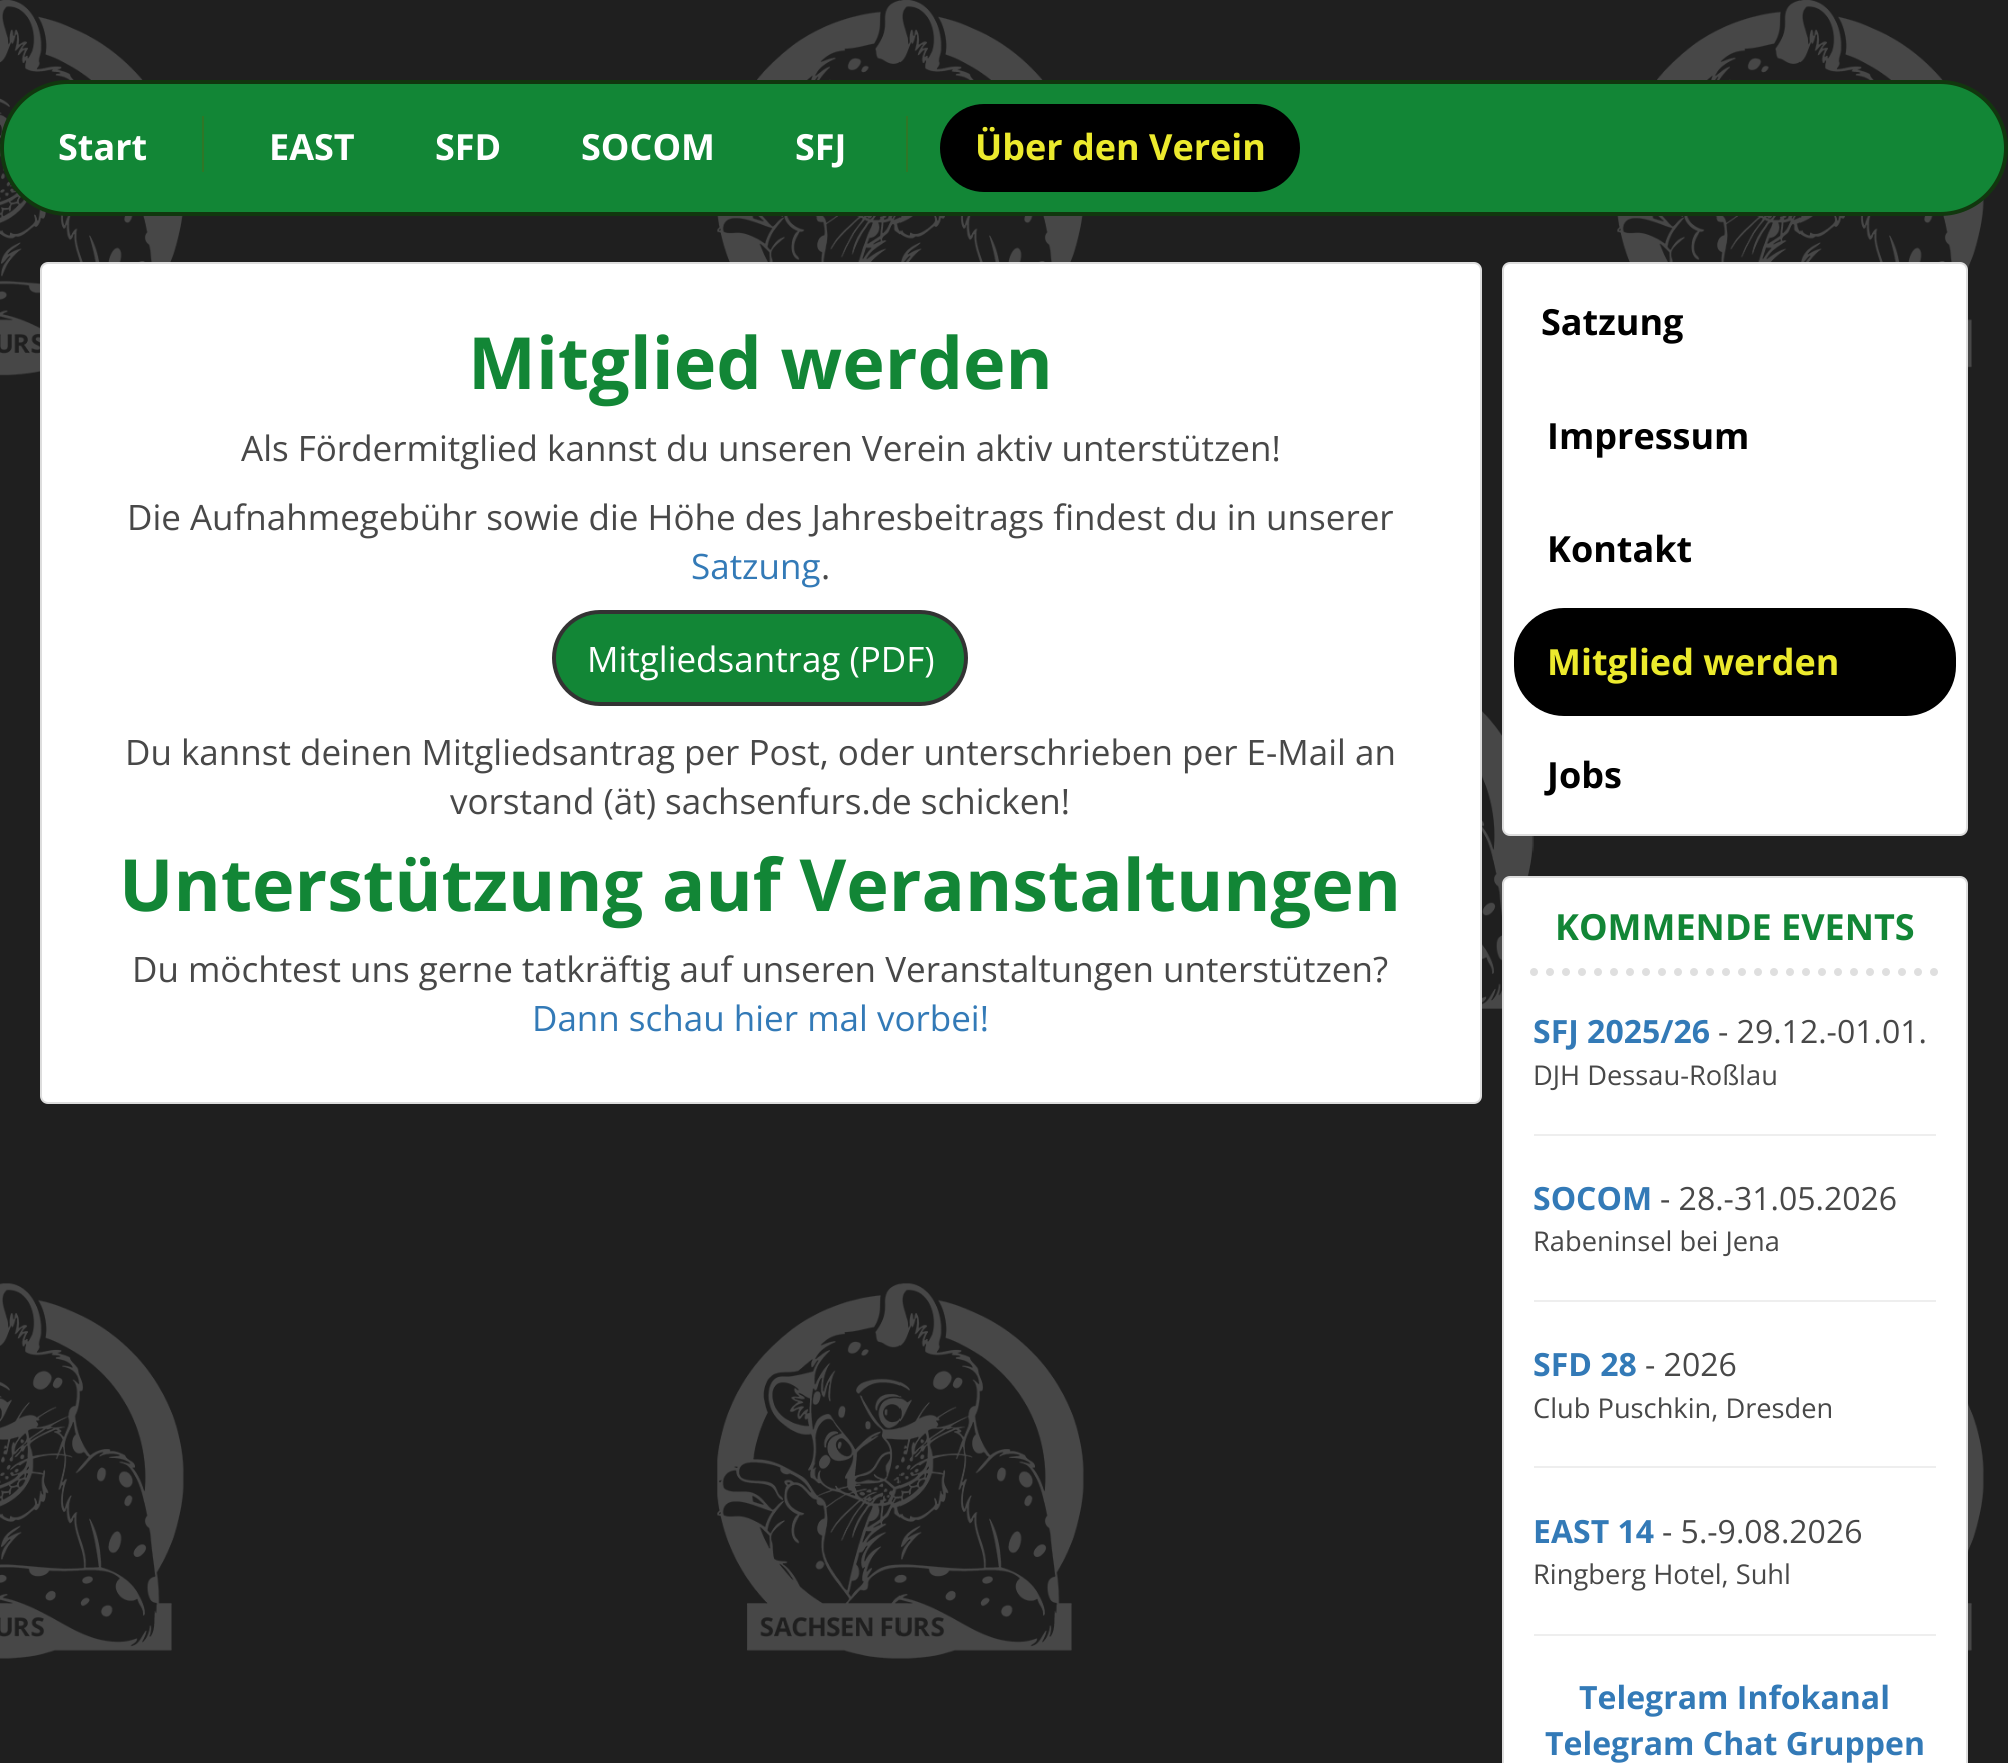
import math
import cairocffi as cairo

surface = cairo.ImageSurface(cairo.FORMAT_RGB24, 2008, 1763)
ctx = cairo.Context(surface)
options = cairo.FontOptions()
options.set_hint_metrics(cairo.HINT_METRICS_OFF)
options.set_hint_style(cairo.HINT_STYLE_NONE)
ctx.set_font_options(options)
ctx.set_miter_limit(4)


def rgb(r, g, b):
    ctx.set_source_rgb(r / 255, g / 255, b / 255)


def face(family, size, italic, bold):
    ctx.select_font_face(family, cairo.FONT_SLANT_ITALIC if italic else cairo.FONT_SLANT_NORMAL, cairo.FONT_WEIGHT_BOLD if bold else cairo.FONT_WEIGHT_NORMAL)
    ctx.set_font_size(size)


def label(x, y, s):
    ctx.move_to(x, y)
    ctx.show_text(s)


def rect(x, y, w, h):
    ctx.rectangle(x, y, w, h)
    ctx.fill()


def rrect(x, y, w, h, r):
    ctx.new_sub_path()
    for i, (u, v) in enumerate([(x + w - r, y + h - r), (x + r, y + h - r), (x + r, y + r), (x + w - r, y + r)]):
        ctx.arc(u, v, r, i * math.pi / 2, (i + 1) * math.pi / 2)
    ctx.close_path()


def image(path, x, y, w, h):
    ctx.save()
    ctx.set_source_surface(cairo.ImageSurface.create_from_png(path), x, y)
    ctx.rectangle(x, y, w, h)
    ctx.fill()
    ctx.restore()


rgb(31, 31, 31)
ctx.paint()
image('image0.png', 0, 0, 1984, 1659)
rgb(18, 134, 54)
rrect(2, 82, 2004, 132, 66)
ctx.fill_preserve()
rgb(17, 55, 14)
ctx.set_line_width(4)
ctx.stroke()
face('Open Sans', 36, 0, 1)
rgb(255, 255, 255)
label(58, 160, 'Start')
rgb(47, 119, 39)
rect(202, 116, 2, 56)
rgb(255, 255, 255)
label(269, 160, 'EAST')
label(435, 160, 'SFD')
label(581, 160, 'SOCOM')
label(795, 160, 'SFJ')
rgb(47, 119, 39)
rect(906, 116, 2, 56)
rgb(0, 0, 0)
rrect(940, 104, 360, 88, 44)
ctx.fill()
rgb(236, 234, 45)
label(975, 160, 'Über den Verein')
rgb(255, 255, 255)
rrect(41, 263, 1440, 840, 7)
ctx.fill_preserve()
rgb(221, 221, 221)
ctx.set_line_width(2)
ctx.stroke()
face('Open Sans', 72, 0, 1)
rgb(18, 134, 54)
label(468, 389, 'Mitglied werden')
face('Open Sans', 35, 0, 0)
rgb(72, 72, 72)
label(241, 461, 'Als Fördermitglied kannst du unseren Verein aktiv unterstützen!')
label(127, 530, 'Die Aufnahmegebühr sowie die Höhe des Jahresbeitrags findest du in unserer')
rgb(51, 122, 183)
label(691, 579, 'Satzung')
rgb(72, 72, 72)
label(821, 579, '.')
rgb(18, 134, 54)
rrect(554, 612, 412, 92, 46)
ctx.fill_preserve()
rgb(51, 51, 51)
ctx.set_line_width(4)
ctx.stroke()
rgb(255, 255, 255)
label(587, 672, 'Mitgliedsantrag (PDF)')
rgb(72, 72, 72)
label(125, 765, 'Du kannst deinen Mitgliedsantrag per Post, oder unterschrieben per E-Mail an')
label(450, 814, 'vorstand (ät) sachsenfurs.de schicken!')
face('Open Sans', 72, 0, 1)
rgb(18, 134, 54)
label(119, 911, 'Unterstützung auf Veranstaltungen')
face('Open Sans', 35, 0, 0)
rgb(72, 72, 72)
label(132, 982, 'Du möchtest uns gerne tatkräftig auf unseren Veranstaltungen unterstützen?')
rgb(51, 122, 183)
label(532, 1031, 'Dann schau hier mal vorbei!')
rgb(255, 255, 255)
rrect(1503, 263, 464, 572, 7)
ctx.fill_preserve()
rgb(221, 221, 221)
ctx.set_line_width(2)
ctx.stroke()
face('Open Sans', 36, 0, 1)
rgb(0, 0, 0)
label(1541, 335, 'Satzung')
label(1547, 449, 'Impressum')
label(1547, 562, 'Kontakt')
rrect(1514, 608, 442, 108, 50)
ctx.fill()
rgb(236, 234, 45)
label(1547, 675, 'Mitglied werden')
rgb(0, 0, 0)
label(1547, 788, 'Jobs')
rgb(255, 255, 255)
rrect(1503, 877, 464, 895, 7)
ctx.fill_preserve()
rgb(221, 221, 221)
ctx.stroke()
ctx.new_path()
ctx.move_to(1534, 972)
ctx.line_to(1936, 972)
rgb(223, 223, 223)
ctx.set_line_width(8)
ctx.set_line_cap(cairo.LINE_CAP_ROUND)
ctx.set_dash([0, 16])
ctx.stroke()
rgb(18, 134, 54)
label(1555, 940, 'KOMMENDE EVENTS')
face('Open Sans', 32, 0, 1)
rgb(51, 122, 183)
label(1533, 1043, 'SFJ 2025/26')
face('Open Sans', 32, 0, 0)
rgb(72, 72, 72)
label(1718, 1043, '- 29.12.-01.01.')
face('Open Sans', 27.25, 0, 0)
label(1533, 1085, 'DJH Dessau-Roßlau')
rgb(238, 238, 238)
rect(1534, 1134, 402, 2)
face('Open Sans', 32, 0, 1)
rgb(51, 122, 183)
label(1533, 1210, 'SOCOM')
face('Open Sans', 32, 0, 0)
rgb(72, 72, 72)
label(1660, 1210, '- 28.-31.05.2026')
face('Open Sans', 27.25, 0, 0)
label(1533, 1251, 'Rabeninsel bei Jena')
rgb(238, 238, 238)
rect(1534, 1300, 402, 2)
face('Open Sans', 32, 0, 1)
rgb(51, 122, 183)
label(1533, 1376, 'SFD 28')
face('Open Sans', 32, 0, 0)
rgb(72, 72, 72)
label(1645, 1376, '- 2026')
face('Open Sans', 27.25, 0, 0)
label(1533, 1418, 'Club Puschkin, Dresden')
rgb(238, 238, 238)
rect(1534, 1466, 402, 2)
face('Open Sans', 32, 0, 1)
rgb(51, 122, 183)
label(1533, 1543, 'EAST 14')
face('Open Sans', 32, 0, 0)
rgb(72, 72, 72)
label(1662, 1543, '- 5.-9.08.2026')
face('Open Sans', 27.25, 0, 0)
label(1533, 1584, 'Ringberg Hotel, Suhl')
rgb(238, 238, 238)
rect(1534, 1634, 402, 2)
face('Open Sans', 32, 0, 1)
rgb(51, 122, 183)
label(1579, 1709, 'Telegram Infokanal')
label(1545, 1755, 'Telegram Chat Gruppen')
surface.write_to_png('render.png')
